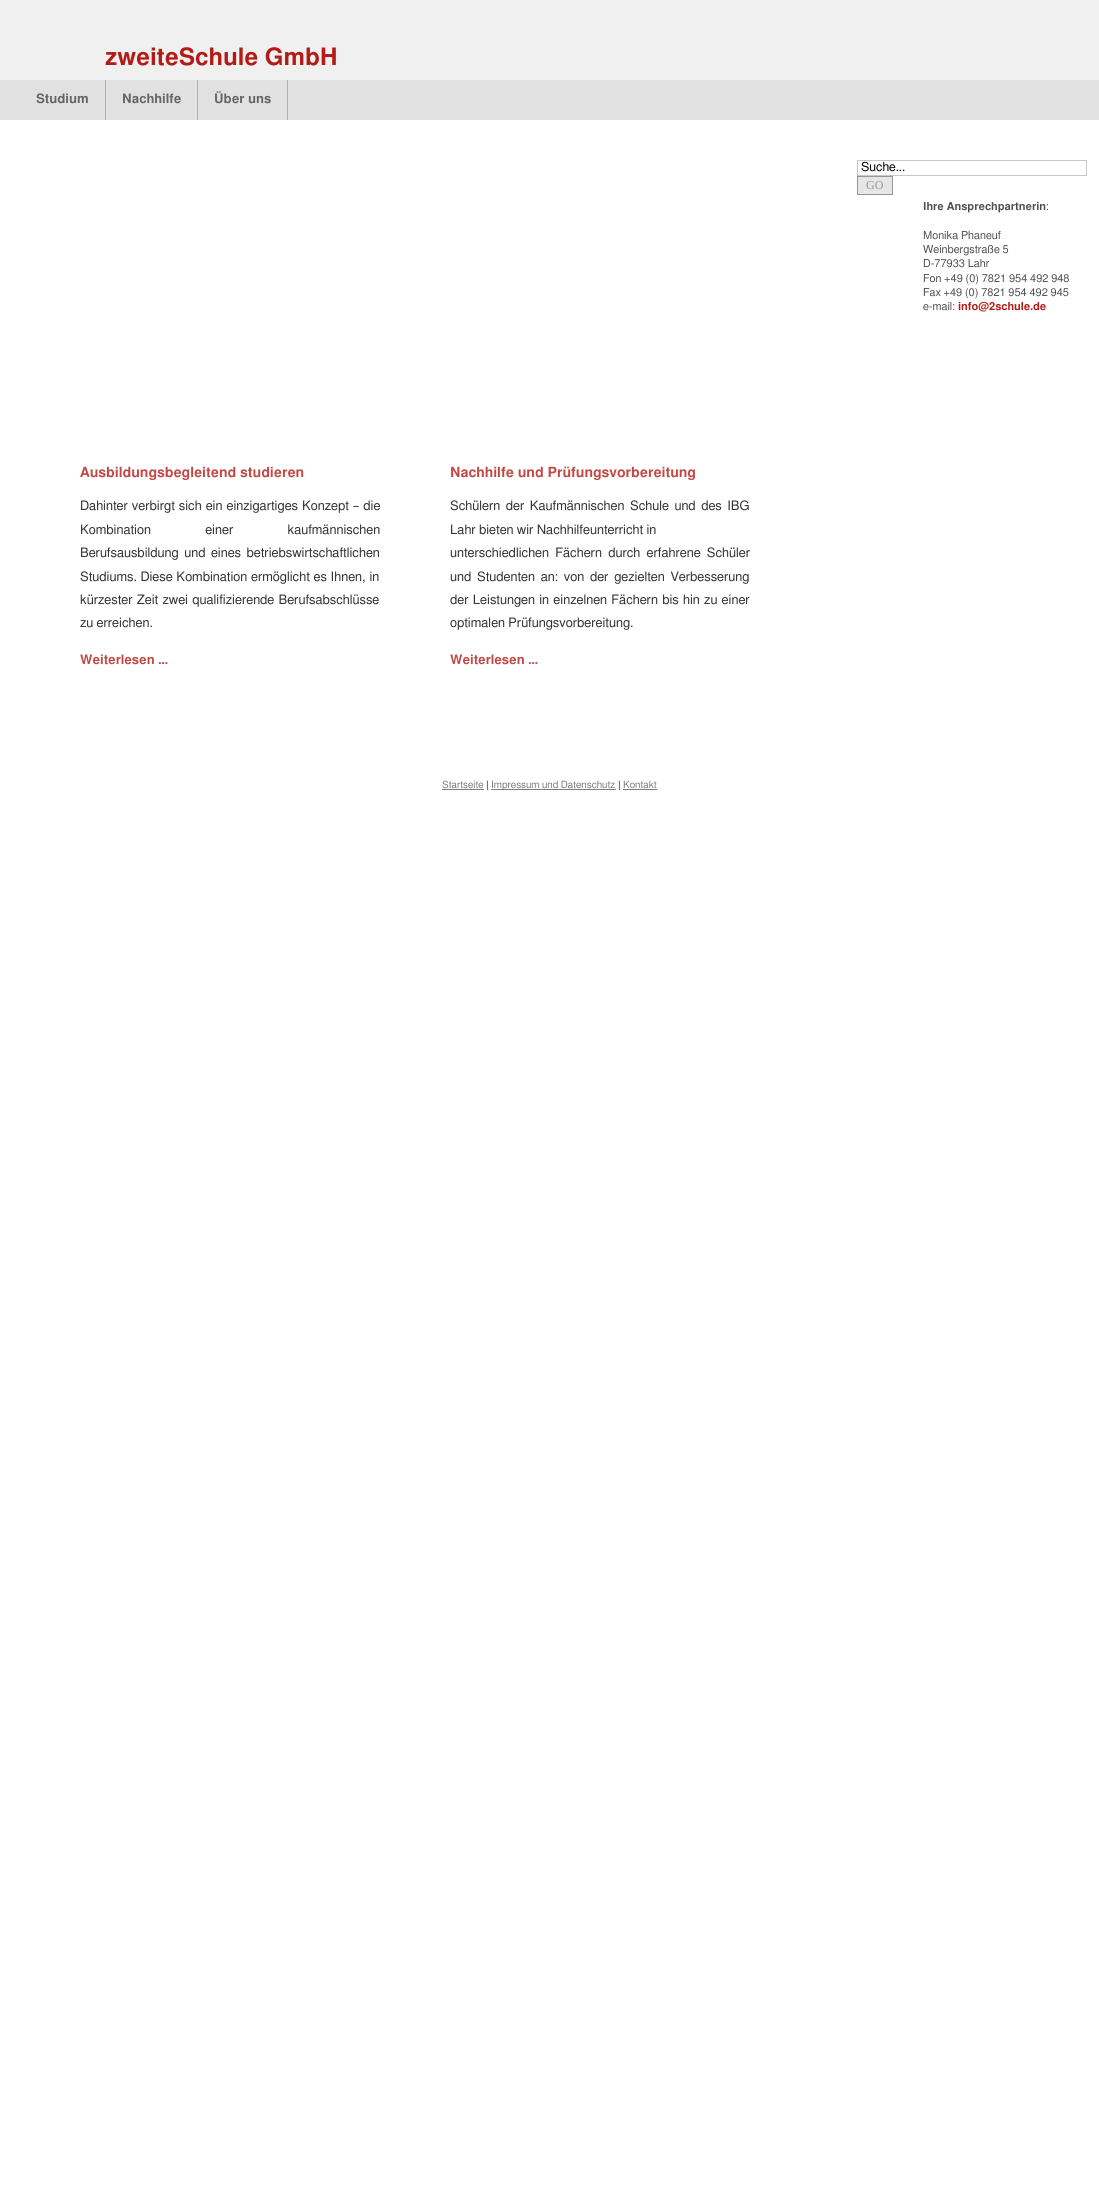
import math
import cairocffi as cairo

surface = cairo.ImageSurface(cairo.FORMAT_RGB24, 1099, 2194)
ctx = cairo.Context(surface)
options = cairo.FontOptions()
options.set_hint_metrics(cairo.HINT_METRICS_OFF)
options.set_hint_style(cairo.HINT_STYLE_NONE)
ctx.set_font_options(options)
ctx.set_miter_limit(4)


def rgb(r, g, b):
    ctx.set_source_rgb(r / 255, g / 255, b / 255)


def face(family, size, italic, bold):
    ctx.select_font_face(family, cairo.FONT_SLANT_ITALIC if italic else cairo.FONT_SLANT_NORMAL, cairo.FONT_WEIGHT_BOLD if bold else cairo.FONT_WEIGHT_NORMAL)
    ctx.set_font_size(size)


def label(x, y, s):
    ctx.move_to(x, y)
    ctx.show_text(s)


def tracked(x, y, s, letter, word):
    ctx.move_to(x, y)
    for ch in s:
        ctx.show_text(ch)
        ctx.rel_move_to(letter + word * (ch == ' '), 0)


def rect(x, y, w, h):
    ctx.rectangle(x, y, w, h)
    ctx.fill()


rgb(255, 255, 255)
ctx.paint()
rgb(240, 240, 240)
rect(0, 0, 1099, 80)
face('FreeSans SemiBold', 24, 0, 0)
rgb(178, 27, 22)
label(105, 65, 'zweiteSchule GmbH')
rgb(225, 225, 225)
rect(0, 80, 1099, 40)
rgb(175, 175, 175)
rect(105, 80, 1, 40)
face('FreeSans SemiBold', 13, 0, 0)
rgb(100, 100, 100)
label(36, 103, 'Studium')
rgb(175, 175, 175)
rect(197, 80, 1, 40)
rgb(100, 100, 100)
label(122, 103, 'Nachhilfe')
rgb(175, 175, 175)
rect(287, 80, 1, 40)
rgb(100, 100, 100)
label(214, 103, 'Über uns')
ctx.rectangle(857.5, 160.5, 229, 15)
rgb(200, 200, 200)
ctx.set_line_width(1)
ctx.stroke()
face('FreeSans', 12.5, 0, 0)
rgb(0, 0, 0)
label(861, 171, 'Suche...')
rgb(230, 230, 230)
ctx.rectangle(857.5, 176.5, 35, 18)
ctx.fill_preserve()
rgb(150, 150, 150)
ctx.stroke()
face('Liberation Serif', 12, 0, 0)
label(866, 189, 'GO')
face('FreeSans SemiBold', 11, 0, 0)
rgb(80, 80, 80)
label(923, 210, 'Ihre Ansprechpartnerin')
face('FreeSans', 11, 0, 0)
label(1046, 210, ':')
label(923, 239, 'Monika Phaneuf')
label(923, 253, 'Weinbergstraße 5')
label(923, 267, 'D-77933 Lahr')
label(923, 282, 'Fon +49 (0) 7821 954 492 948')
label(923, 296, 'Fax +49 (0) 7821 954 492 945')
label(923, 310, 'e-mail:')
face('FreeSans SemiBold', 11, 0, 0)
rgb(178, 27, 22)
label(958, 310, 'info@2schule.de')
face('FreeSans SemiBold', 14, 0, 0)
rgb(193, 73, 69)
label(80, 477, 'Ausbildungsbegleitend studieren')
face('FreeSans', 13, 0, 0)
rgb(51, 51, 51)
tracked(80, 510, 'Dahinter verbirgt sich ein einzigartiges Konzept – die', 0, 0.75)
tracked(80, 534, 'Kombination einer kaufmännischen', 0, 51)
tracked(80, 557, 'Berufsausbildung und eines betriebswirtschaftlichen', 0, 2.25)
tracked(80, 581, 'Studiums. Diese Kombination ermöglicht es Ihnen, in', 0, 0.5)
tracked(80, 604, 'kürzester Zeit zwei qualifizierende Berufsabschlüsse', 0, 1)
label(80, 627, 'zu erreichen.')
face('FreeSans SemiBold', 13, 0, 0)
rgb(193, 73, 69)
label(80, 664, 'Weiterlesen ...')
face('FreeSans SemiBold', 14, 0, 0)
label(450, 477, 'Nachhilfe und Prüfungsvorbereitung')
face('FreeSans', 13, 0, 0)
rgb(51, 51, 51)
tracked(450, 510, 'Schülern der Kaufmännischen Schule und des IBG', 0, 2.25)
label(450, 534, 'Lahr bieten wir Nachhilfeunterricht in')
tracked(450, 557, 'unterschiedlichen Fächern durch erfahrene Schüler', 0, 3)
tracked(450, 581, 'und Studenten an: von der gezielten Verbesserung', 0, 2.5)
tracked(450, 604, 'der Leistungen in einzelnen Fächern bis hin zu einer', 0, 1)
label(450, 627, 'optimalen Prüfungsvorbereitung.')
face('FreeSans SemiBold', 13, 0, 0)
rgb(193, 73, 69)
label(450, 664, 'Weiterlesen ...')
face('FreeSans', 10, 0, 0)
rgb(125, 125, 125)
label(442, 788, 'Startseite')
rect(442, 789, 42, 1)
rgb(0, 0, 0)
label(486, 788, '|')
rgb(125, 125, 125)
rect(491, 789, 125, 1)
label(491, 788, 'Impressum und Datenschutz')
rgb(0, 0, 0)
label(618, 788, '|')
rgb(125, 125, 125)
label(623, 788, 'Kontakt')
rect(623, 789, 34, 1)
surface.write_to_png('render.png')
